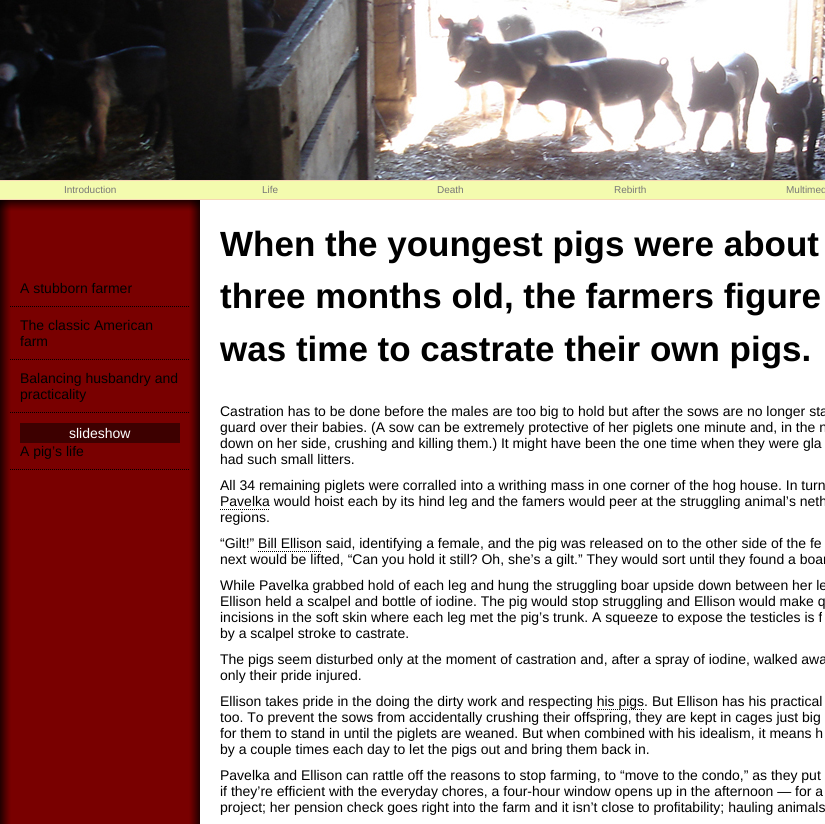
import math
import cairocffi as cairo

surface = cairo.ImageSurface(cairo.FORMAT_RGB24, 825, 824)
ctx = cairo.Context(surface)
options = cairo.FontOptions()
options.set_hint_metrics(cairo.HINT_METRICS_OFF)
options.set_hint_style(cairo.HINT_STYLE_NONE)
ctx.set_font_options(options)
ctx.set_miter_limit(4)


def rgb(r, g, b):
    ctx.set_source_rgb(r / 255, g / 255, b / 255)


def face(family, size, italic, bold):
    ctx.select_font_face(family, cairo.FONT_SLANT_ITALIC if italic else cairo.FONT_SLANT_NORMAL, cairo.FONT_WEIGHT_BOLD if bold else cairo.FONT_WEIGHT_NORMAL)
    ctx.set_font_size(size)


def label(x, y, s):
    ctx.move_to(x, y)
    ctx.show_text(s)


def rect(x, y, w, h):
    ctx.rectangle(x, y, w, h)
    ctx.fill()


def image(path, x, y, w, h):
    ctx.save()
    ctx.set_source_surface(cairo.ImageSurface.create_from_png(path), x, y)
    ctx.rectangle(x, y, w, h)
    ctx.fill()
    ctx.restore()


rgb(121, 0, 0)
ctx.paint()
image('image0.png', 0, 0, 825, 180)
rgb(243, 251, 174)
rect(0, 181, 825, 18)
rgb(245, 215, 180)
rect(0, 180, 825, 1)
rect(0, 199, 825, 1)
face('Liberation Sans', 10, 0, 0)
rgb(119, 119, 119)
label(64, 193, 'Introduction')
label(262, 193, 'Life')
label(437, 193, 'Death')
label(614, 193, 'Rebirth')
label(786, 193, 'Multimed')
image('image1.png', 0, 200, 200, 624)
image('image2.png', 0, 200, 200, 11)
ctx.new_path()
ctx.move_to(10, 306.5)
ctx.line_to(190, 306.5)
rgb(0, 0, 0)
ctx.set_line_width(1)
ctx.set_dash([1, 1])
ctx.stroke()
face('Liberation Sans', 14, 0, 0)
label(20, 293, 'A stubborn farmer')
ctx.new_path()
ctx.move_to(10, 359.5)
ctx.line_to(190, 359.5)
ctx.stroke()
label(20, 330, 'The classic American')
label(20, 346, 'farm')
ctx.new_path()
ctx.move_to(10, 412.5)
ctx.line_to(190, 412.5)
ctx.stroke()
label(20, 383, 'Balancing husbandry and')
label(20, 399, 'practicality')
ctx.new_path()
ctx.move_to(10, 469.5)
ctx.line_to(190, 469.5)
ctx.stroke()
rgb(61, 0, 0)
rect(20, 423, 160, 20)
rgb(255, 255, 255)
label(69, 438, 'slideshow')
rgb(0, 0, 0)
label(20, 456, 'A pig’s life')
rgb(255, 255, 255)
rect(200, 200, 625, 624)
face('Liberation Sans', 35, 0, 1)
rgb(0, 0, 0)
label(220, 256, 'When the youngest pigs were about')
label(220, 308, 'three months old, the farmers figure')
label(220, 361, 'was time to castrate their own pigs.')
face('Liberation Sans', 14, 0, 0)
label(220, 416, 'Castration has to be done before the males are too big to hold but after the sows are no longer sta')
label(220, 432, 'guard over their babies. (A sow can be extremely protective of her piglets one minute and, in the n')
label(220, 448, 'down on her side, crushing and killing them.) It might have been the one time when they were gla')
label(220, 464, 'had such small litters.')
label(220, 490, 'All 34 remaining piglets were corralled into a writhing mass in one corner of the hog house. In turn')
label(220, 506, 'Pavelka would hoist each by its hind leg and the famers would peer at the struggling animal’s neth')
ctx.new_path()
ctx.move_to(220, 509.5)
ctx.line_to(270, 509.5)
ctx.stroke()
label(220, 522, 'regions.')
label(220, 548, '“Gilt!” Bill Ellison said, identifying a female, and the pig was released on to the other side of the fe')
ctx.new_path()
ctx.move_to(258, 551.5)
ctx.line_to(322, 551.5)
ctx.stroke()
label(220, 564, 'next would be lifted, “Can you hold it still? Oh, she’s a gilt.” They would sort until they found a boar')
label(220, 590, 'While Pavelka grabbed hold of each leg and hung the struggling boar upside down between her le')
label(220, 606, 'Ellison held a scalpel and bottle of iodine. The pig would stop struggling and Ellison would make q')
label(220, 622, 'incisions in the soft skin where each leg met the pig’s trunk. A squeeze to expose the testicles is f')
label(220, 638, 'by a scalpel stroke to castrate.')
label(220, 664, 'The pigs seem disturbed only at the moment of castration and, after a spray of iodine, walked awa')
label(220, 680, 'only their pride injured.')
label(220, 706, 'Ellison takes pride in the doing the dirty work and respecting his pigs. But Ellison has his practical')
ctx.new_path()
ctx.move_to(597, 709.5)
ctx.line_to(644, 709.5)
ctx.stroke()
label(220, 722, 'too. To prevent the sows from accidentally crushing their offspring, they are kept in cages just big')
label(220, 738, 'for them to stand in until the piglets are weaned. But when combined with his idealism, it means h')
label(220, 754, 'by a couple times each day to let the pigs out and bring them back in.')
label(220, 780, 'Pavelka and Ellison can rattle off the reasons to stop farming, to “move to the condo,” as they put')
label(220, 796, 'if they’re efficient with the everyday chores, a four-hour window opens up in the afternoon — for a')
label(220, 812, 'project; her pension check goes right into the farm and it isn’t close to profitability; hauling animals')
surface.write_to_png('render.png')
